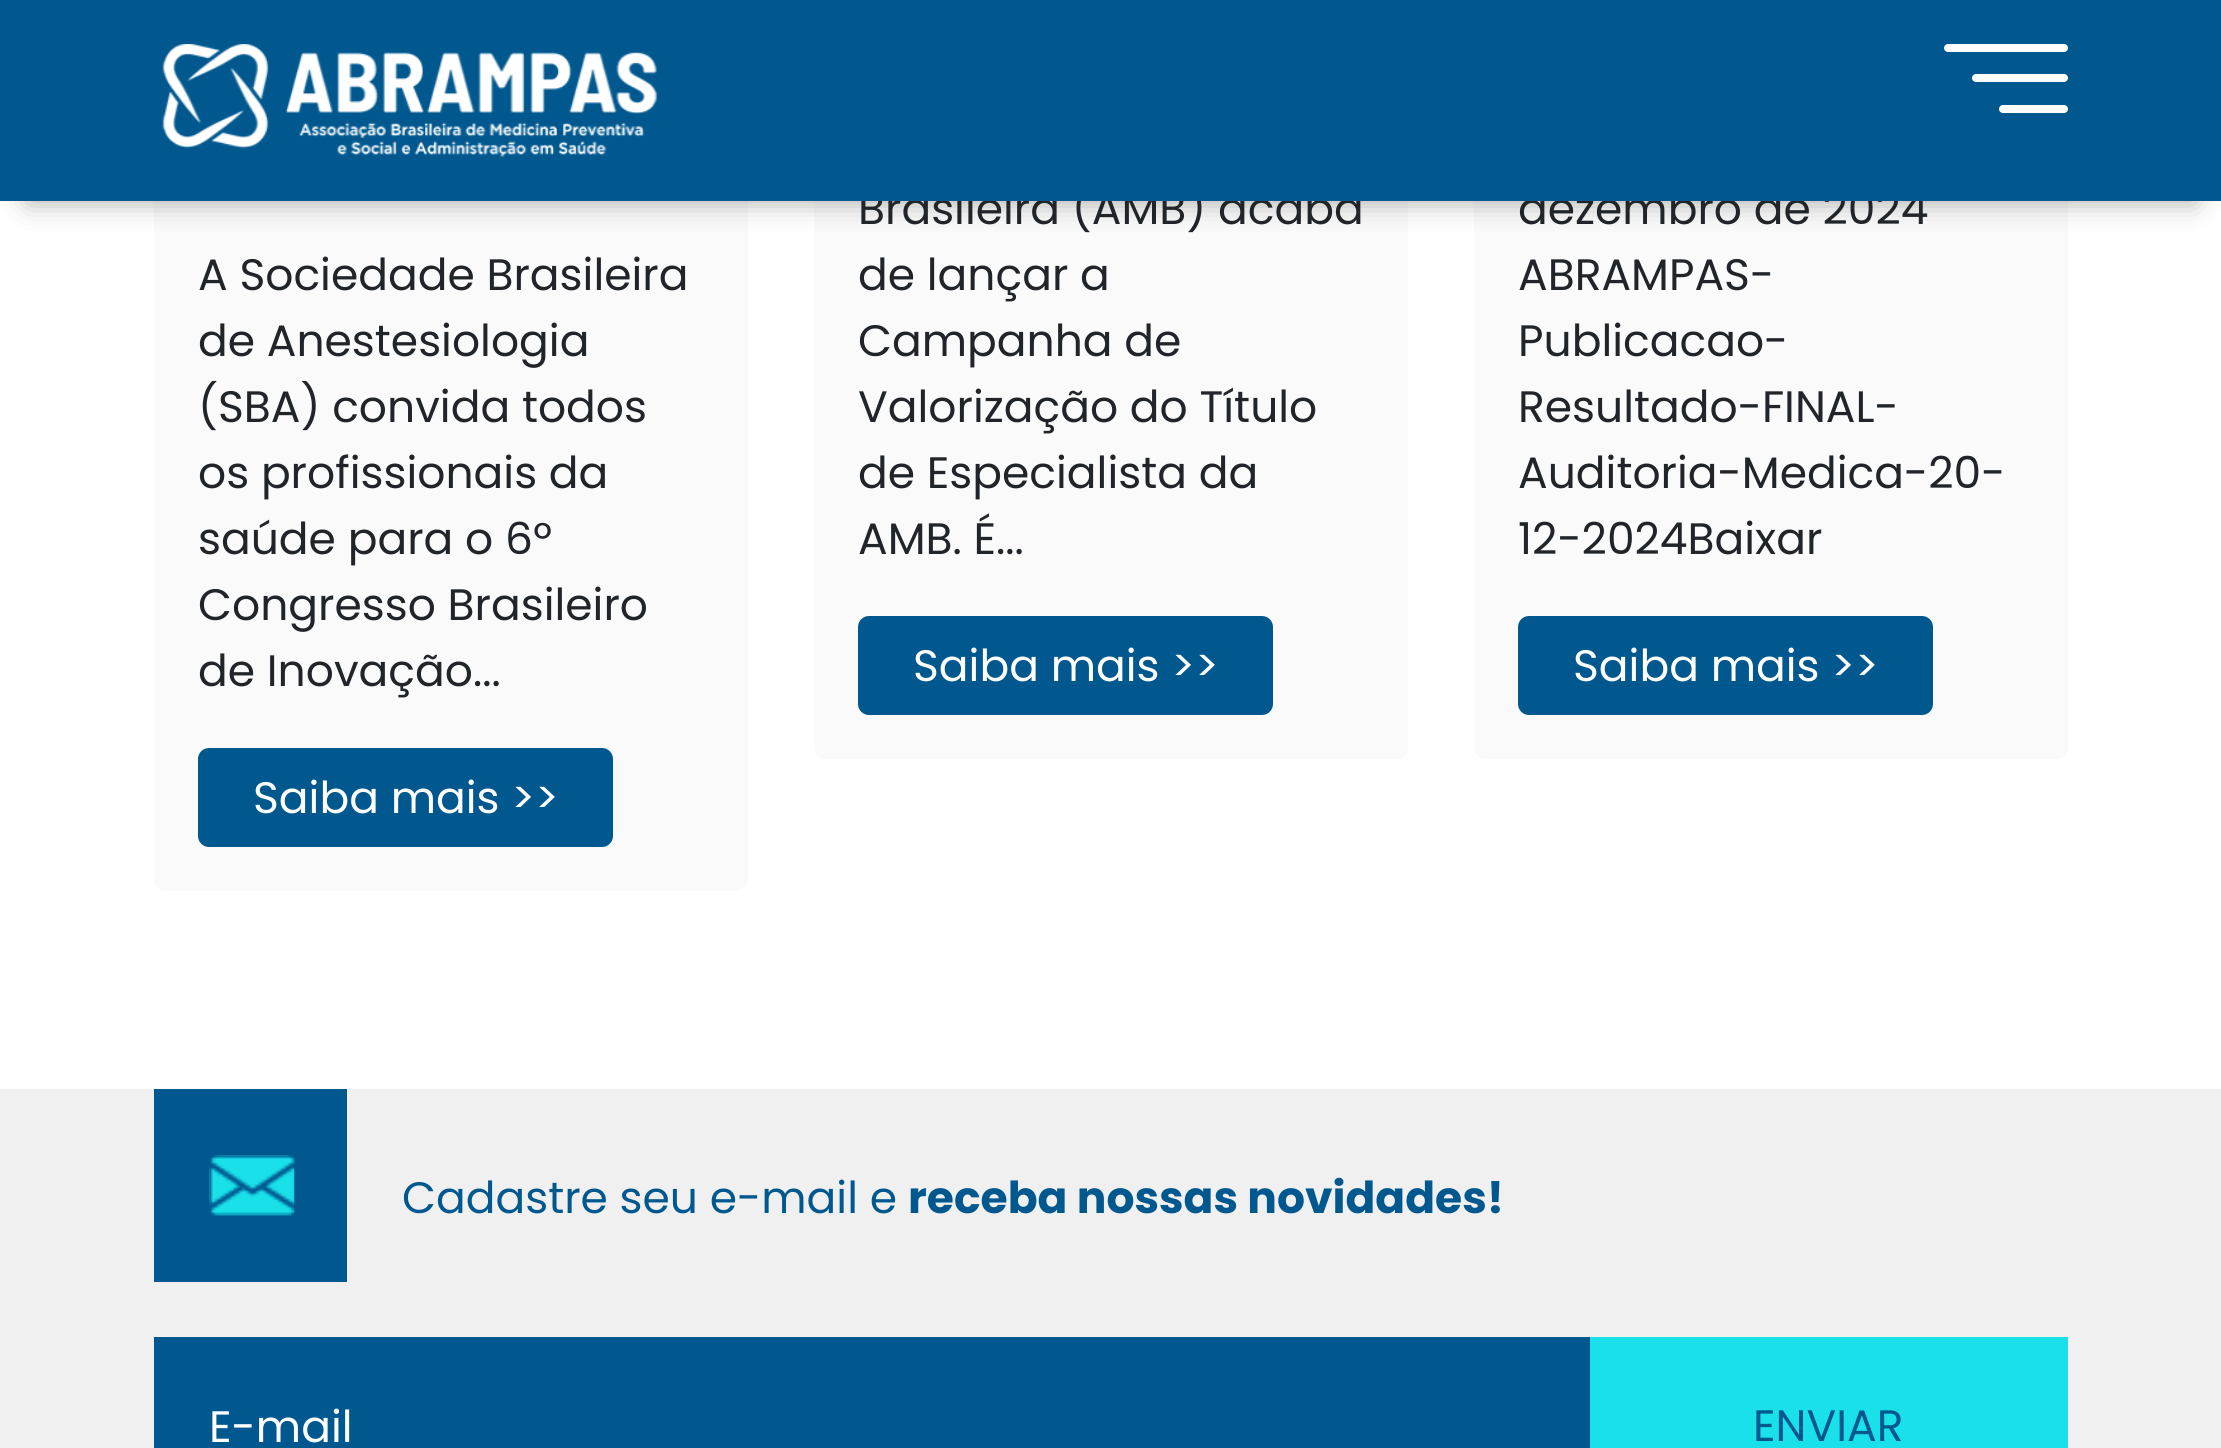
import math
import cairocffi as cairo

surface = cairo.ImageSurface(cairo.FORMAT_RGB24, 2221, 1448)
ctx = cairo.Context(surface)
options = cairo.FontOptions()
options.set_hint_metrics(cairo.HINT_METRICS_OFF)
options.set_hint_style(cairo.HINT_STYLE_NONE)
ctx.set_font_options(options)
ctx.set_miter_limit(4)


def rgb(r, g, b):
    ctx.set_source_rgb(r / 255, g / 255, b / 255)


def face(family, size, italic, bold):
    ctx.select_font_face(family, cairo.FONT_SLANT_ITALIC if italic else cairo.FONT_SLANT_NORMAL, cairo.FONT_WEIGHT_BOLD if bold else cairo.FONT_WEIGHT_NORMAL)
    ctx.set_font_size(size)


def label(x, y, s):
    ctx.move_to(x, y)
    ctx.show_text(s)


def rect(x, y, w, h):
    ctx.rectangle(x, y, w, h)
    ctx.fill()


def rrect(x, y, w, h, r):
    ctx.new_sub_path()
    for i, (u, v) in enumerate([(x + w - r, y + h - r), (x + r, y + h - r), (x + r, y + r), (x + w - r, y + r)]):
        ctx.arc(u, v, r, i * math.pi / 2, (i + 1) * math.pi / 2)
    ctx.close_path()


def soft_shadow(x, y, w, h, r, blur, alpha):
    ctx.push_group_with_content(cairo.CONTENT_ALPHA)
    ctx.set_operator(cairo.OPERATOR_SOURCE)
    for i in range(15, -16, -2):
        e = blur * i / 6
        if min(w, h) + 2 * e > 0:
            ctx.set_source_rgba(0, 0, 0, alpha * math.erfc((i - 1) / 8.5) / 2)
            rrect(x - e, y - e, w + 2 * e, h + 2 * e, max(0, min(r + e + blur * .6, min(w, h) / 2 + e)))
            ctx.fill()
    ctx.mask(ctx.pop_group())


def image(path, x, y, w, h):
    ctx.save()
    ctx.set_source_surface(cairo.ImageSurface.create_from_png(path), x, y)
    ctx.rectangle(x, y, w, h)
    ctx.fill()
    ctx.restore()


rgb(255, 255, 255)
ctx.paint()
rgb(250, 250, 250)
rrect(154, -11, 594, 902, 11)
ctx.fill()
rrect(814, -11, 594, 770, 11)
ctx.fill()
rrect(1474, -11, 594, 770, 11)
ctx.fill()
rgb(0, 0, 0)
soft_shadow(28, 55, 2167, 146, 0, 14, 0.35)
face('Poppins', 44, 0, 0)
rgb(33, 37, 41)
label(858, 224, 'Brasileira (AMB) acaba')
label(1518, 224, 'dezembro de 2024')
rgb(0, 88, 143)
rect(0, 0, 2221, 201)
image('image0.png', 162, 44, 496, 113)
rgb(255, 255, 255)
rrect(1944, 44, 124, 8, 4)
ctx.fill()
rrect(1972, 74, 96, 8, 4)
ctx.fill()
rrect(1999, 105, 69, 8, 4)
ctx.fill()
rgb(33, 37, 41)
label(198, 290, 'A Sociedade Brasileira')
label(198, 356, 'de Anestesiologia')
label(198, 422, '(SBA) convida todos')
label(198, 488, 'os profissionais da')
label(198, 554, 'saúde para o 6º')
label(198, 620, 'Congresso Brasileiro')
label(198, 686, 'de Inovação...')
rgb(0, 88, 143)
rrect(198, 748, 415, 99, 11)
ctx.fill()
rgb(255, 255, 255)
label(253, 813, 'Saiba mais >>')
rgb(33, 37, 41)
label(858, 290, 'de lançar a')
label(858, 356, 'Campanha de')
label(858, 422, 'Valorização do Título')
label(858, 488, 'de Especialista da')
label(858, 554, 'AMB. É...')
rgb(0, 88, 143)
rrect(858, 616, 415, 99, 11)
ctx.fill()
rgb(255, 255, 255)
label(913, 681, 'Saiba mais >>')
rgb(33, 37, 41)
label(1518, 290, 'ABRAMPAS-')
label(1518, 356, 'Publicacao-')
label(1518, 422, 'Resultado-FINAL-')
label(1518, 488, 'Auditoria-Medica-20-')
label(1518, 554, '12-2024Baixar')
rgb(0, 88, 143)
rrect(1518, 616, 415, 99, 11)
ctx.fill()
rgb(255, 255, 255)
label(1573, 681, 'Saiba mais >>')
rgb(240, 240, 240)
rect(0, 1089, 2221, 359)
rgb(0, 88, 143)
rect(154, 1089, 193, 193)
image('image1.png', 209, 1155, 86, 61)
label(402, 1213, 'Cadastre seu e-mail e')
face('Poppins', 44, 0, 1)
label(908, 1213, 'receba nossas novidades!')
rect(154, 1337, 1436, 111)
face('Poppins', 44, 0, 0)
rgb(255, 255, 255)
label(209, 1442, 'E-mail')
rgb(25, 224, 233)
rect(1590, 1337, 478, 111)
rgb(0, 88, 143)
label(1753, 1441, 'ENVIAR')
surface.write_to_png('render.png')
